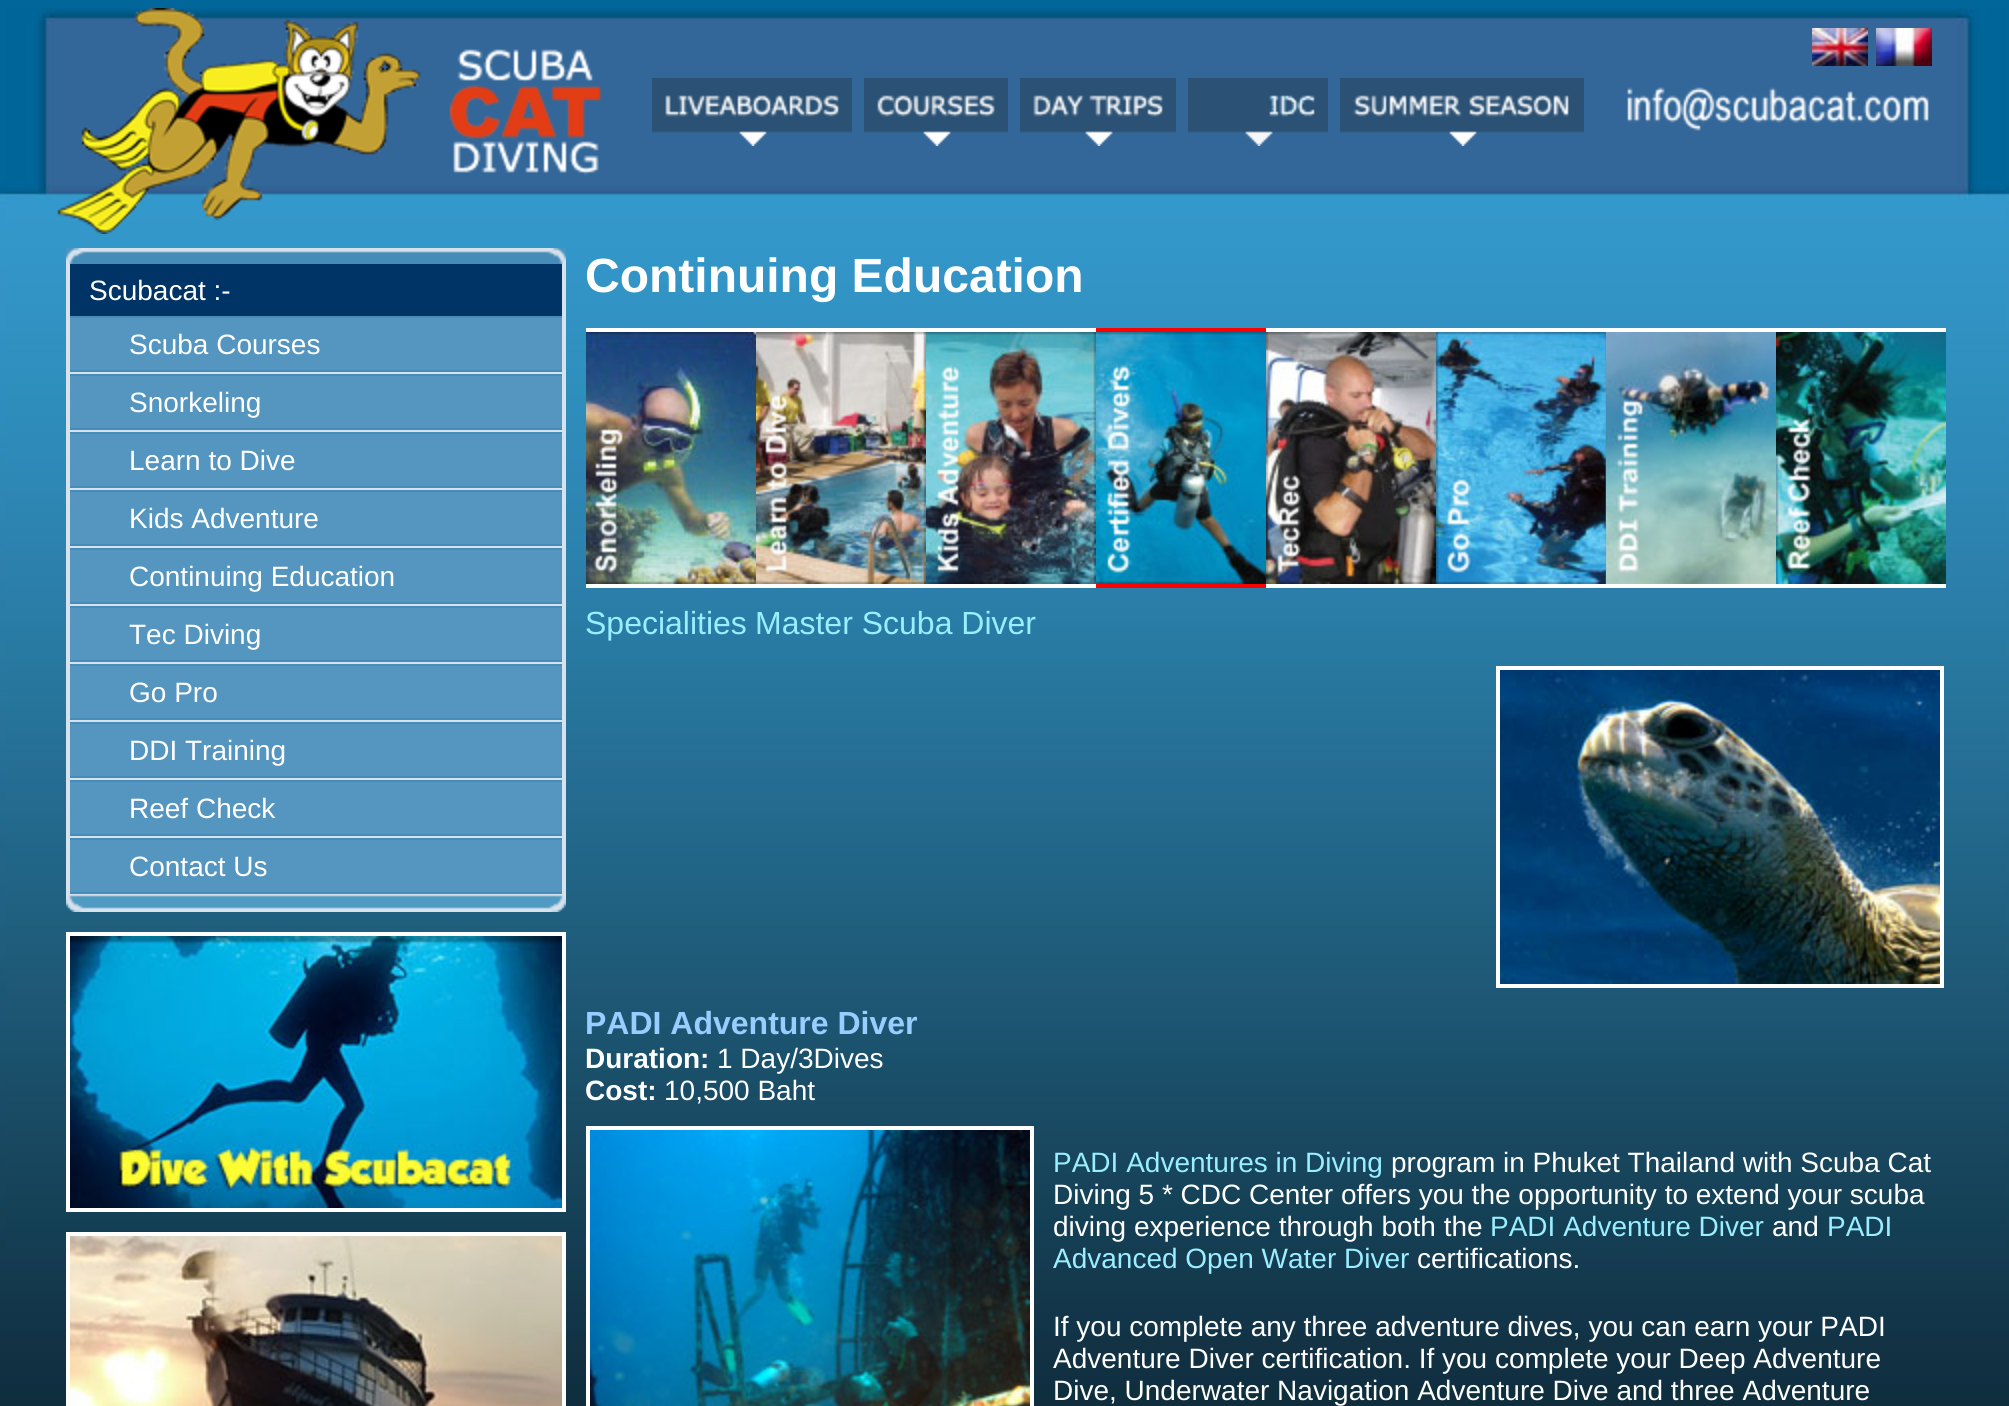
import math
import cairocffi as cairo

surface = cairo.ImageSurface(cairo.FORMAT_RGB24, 2009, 1406)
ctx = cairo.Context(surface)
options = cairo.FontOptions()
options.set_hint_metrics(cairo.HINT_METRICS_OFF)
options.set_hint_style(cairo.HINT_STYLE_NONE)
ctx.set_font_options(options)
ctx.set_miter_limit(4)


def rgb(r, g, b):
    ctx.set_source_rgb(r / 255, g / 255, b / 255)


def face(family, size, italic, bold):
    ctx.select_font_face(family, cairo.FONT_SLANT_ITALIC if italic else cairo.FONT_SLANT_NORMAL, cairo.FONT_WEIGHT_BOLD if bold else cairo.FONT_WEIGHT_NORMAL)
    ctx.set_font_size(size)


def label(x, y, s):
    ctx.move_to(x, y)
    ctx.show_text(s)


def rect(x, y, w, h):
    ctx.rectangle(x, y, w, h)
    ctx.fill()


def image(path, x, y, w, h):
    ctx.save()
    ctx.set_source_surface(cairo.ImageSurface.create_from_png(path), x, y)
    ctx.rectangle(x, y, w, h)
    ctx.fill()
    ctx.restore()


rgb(255, 255, 255)
ctx.paint()
image('image0.png', 0, 0, 2009, 1406)
image('image1.png', 6, 8, 2000, 1239)
image('image2.png', 57, 8, 544, 226)
image('image3.png', 1812, 28, 56, 38)
image('image4.png', 1876, 28, 56, 38)
image('image5.png', 652, 78, 200, 68)
image('image6.png', 864, 78, 144, 68)
image('image7.png', 1020, 78, 156, 68)
image('image8.png', 1188, 78, 140, 68)
image('image9.png', 1340, 78, 244, 68)
image('image10.png', 1627, 87, 302, 44)
image('image11.png', 66, 248, 500, 16)
rgb(215, 226, 237)
rect(66, 264, 500, 630)
rgb(0, 51, 102)
rect(70, 264, 492, 52)
face('Liberation Sans', 28, 0, 0)
rgb(255, 255, 255)
label(89, 300, 'Scubacat :-')
rgb(84, 150, 191)
rect(70, 318, 492, 52)
rgb(69, 141, 184)
rect(70, 316, 492, 2)
rect(70, 370, 492, 2)
rgb(255, 255, 255)
label(129, 354, 'Scuba Courses')
rgb(84, 150, 191)
rect(70, 376, 492, 52)
rgb(69, 141, 184)
rect(70, 374, 492, 2)
rect(70, 428, 492, 2)
rgb(255, 255, 255)
label(129, 412, 'Snorkeling')
rgb(84, 150, 191)
rect(70, 434, 492, 52)
rgb(69, 141, 184)
rect(70, 432, 492, 2)
rect(70, 486, 492, 2)
rgb(255, 255, 255)
label(129, 470, 'Learn to Dive')
rgb(84, 150, 191)
rect(70, 492, 492, 52)
rgb(69, 141, 184)
rect(70, 490, 492, 2)
rect(70, 544, 492, 2)
rgb(255, 255, 255)
label(129, 528, 'Kids Adventure')
rgb(84, 150, 191)
rect(70, 550, 492, 52)
rgb(69, 141, 184)
rect(70, 548, 492, 2)
rect(70, 602, 492, 2)
rgb(255, 255, 255)
label(129, 586, 'Continuing Education')
rgb(84, 150, 191)
rect(70, 608, 492, 52)
rgb(69, 141, 184)
rect(70, 606, 492, 2)
rect(70, 660, 492, 2)
rgb(255, 255, 255)
label(129, 644, 'Tec Diving')
rgb(84, 150, 191)
rect(70, 666, 492, 52)
rgb(69, 141, 184)
rect(70, 664, 492, 2)
rect(70, 718, 492, 2)
rgb(255, 255, 255)
label(129, 702, 'Go Pro')
rgb(84, 150, 191)
rect(70, 724, 492, 52)
rgb(69, 141, 184)
rect(70, 722, 492, 2)
rect(70, 776, 492, 2)
rgb(255, 255, 255)
label(129, 760, 'DDI Training')
rgb(84, 150, 191)
rect(70, 782, 492, 52)
rgb(69, 141, 184)
rect(70, 780, 492, 2)
rect(70, 834, 492, 2)
rgb(255, 255, 255)
label(129, 818, 'Reef Check')
rgb(84, 150, 191)
rect(70, 840, 492, 52)
rgb(69, 141, 184)
rect(70, 838, 492, 2)
rect(70, 892, 492, 2)
rgb(255, 255, 255)
label(129, 876, 'Contact Us')
image('image12.png', 66, 894, 500, 18)
ctx.rectangle(68, 934, 496, 276)
ctx.set_line_width(4)
ctx.stroke()
image('image13.png', 70, 936, 492, 272)
ctx.rectangle(68, 1234, 496, 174)
ctx.stroke()
image('image14.png', 70, 1236, 492, 170)
face('Liberation Sans', 48, 0, 1)
label(585, 292, 'Continuing Education')
rect(586, 328, 510, 4)
rect(586, 584, 510, 4)
image('image15.png', 586, 332, 170, 252)
rgb(255, 0, 0)
rect(1096, 328, 170, 4)
rect(1096, 584, 170, 4)
image('image16.png', 1096, 332, 170, 252)
rgb(255, 255, 255)
rect(1266, 328, 680, 4)
rect(1266, 584, 680, 4)
image('image17.png', 1266, 332, 170, 252)
image('image18.png', 756, 332, 170, 252)
image('image19.png', 926, 332, 170, 252)
image('image20.png', 1436, 332, 170, 252)
image('image21.png', 1606, 332, 170, 252)
image('image22.png', 1776, 332, 170, 252)
face('Liberation Sans', 32, 0, 0)
rgb(153, 238, 255)
label(585, 634, 'Specialities')
label(755, 634, 'Master Scuba Diver')
ctx.rectangle(1498, 668, 444, 318)
rgb(255, 255, 255)
ctx.stroke()
image('image23.png', 1500, 670, 440, 314)
face('Liberation Sans', 32, 0, 1)
rgb(153, 204, 255)
label(585, 1034, 'PADI Adventure Diver')
face('Liberation Sans', 28, 0, 1)
rgb(255, 255, 255)
label(585, 1068, 'Duration:')
face('Liberation Sans', 28, 0, 0)
label(717, 1068, '1 Day/3Dives')
face('Liberation Sans', 28, 0, 1)
label(585, 1100, 'Cost:')
face('Liberation Sans', 28, 0, 0)
label(664, 1100, '10,500 Baht')
ctx.rectangle(588, 1128, 444, 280)
ctx.stroke()
image('image24.png', 590, 1130, 440, 276)
rgb(153, 238, 255)
label(1053, 1172, 'PADI Adventures in Diving')
rgb(255, 255, 255)
label(1391, 1172, 'program in Phuket Thailand with Scuba Cat')
label(1053, 1204, 'Diving 5 * CDC Center offers you the opportunity to extend your scuba')
label(1053, 1236, 'diving experience through both the')
rgb(153, 238, 255)
label(1490, 1236, 'PADI Adventure Diver')
rgb(255, 255, 255)
label(1772, 1236, 'and')
rgb(153, 238, 255)
label(1827, 1236, 'PADI')
label(1053, 1268, 'Advanced Open Water Diver')
rgb(255, 255, 255)
label(1417, 1268, 'certifications.')
label(1053, 1336, 'If you complete any three adventure dives, you can earn your PADI')
label(1053, 1368, 'Adventure Diver certification. If you complete your Deep Adventure')
label(1053, 1400, 'Dive, Underwater Navigation Adventure Dive and three Adventure')
surface.write_to_png('render.png')
